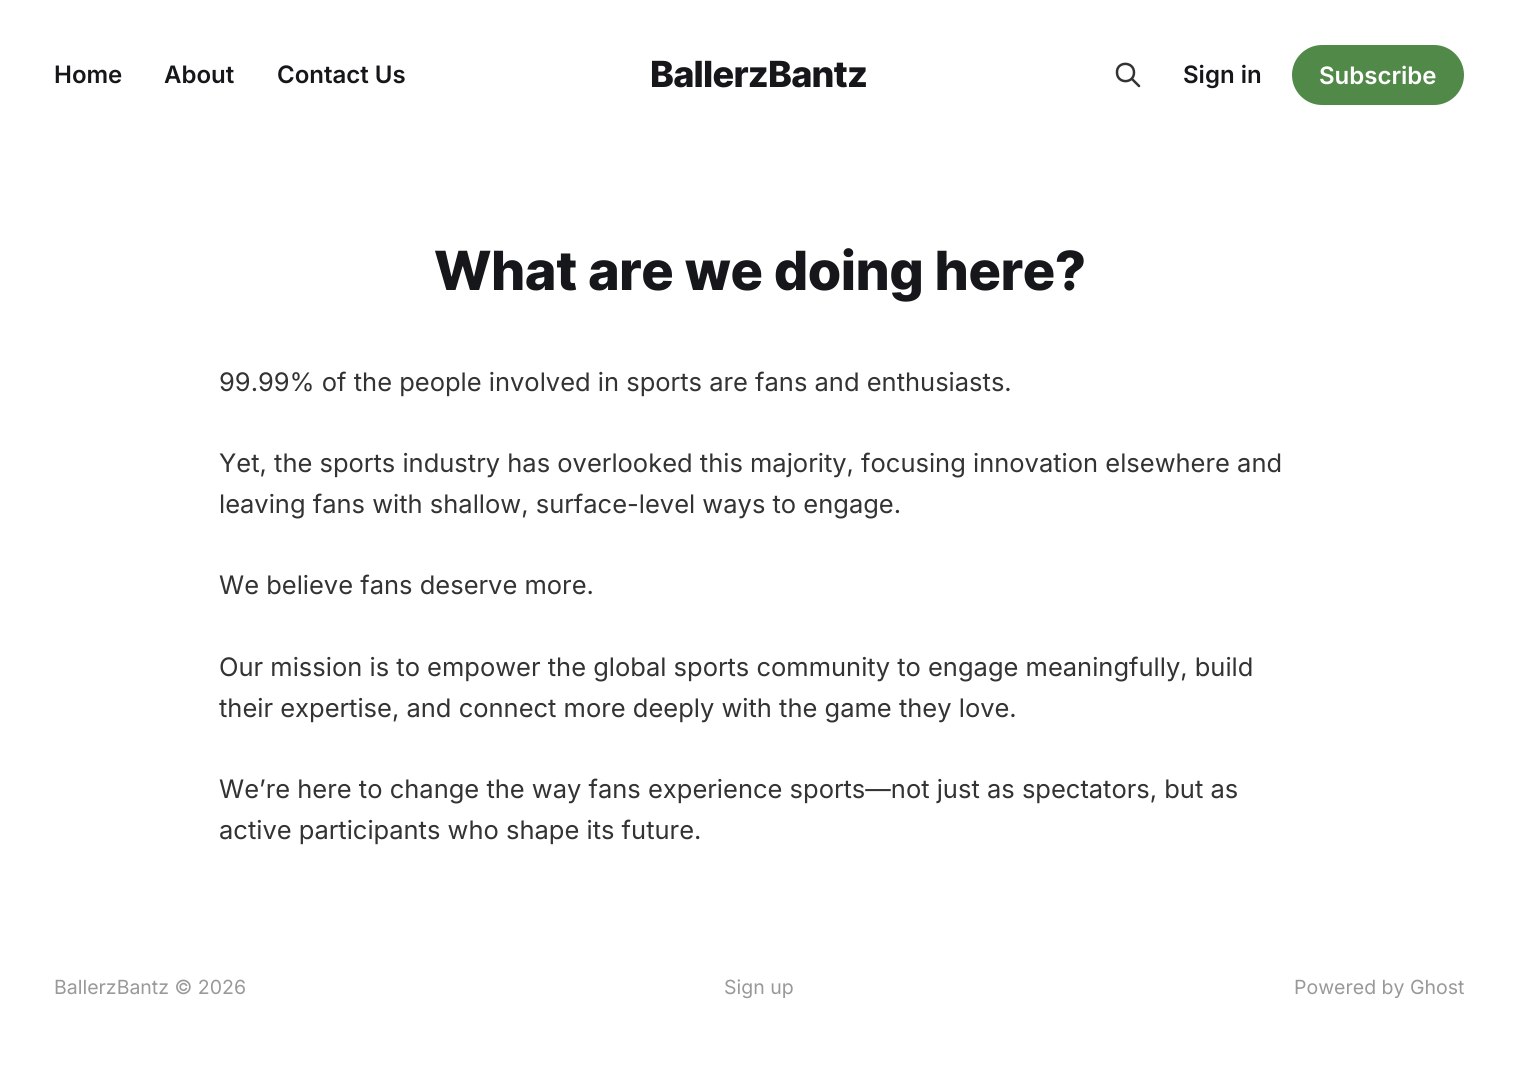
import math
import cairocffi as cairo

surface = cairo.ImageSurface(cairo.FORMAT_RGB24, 1517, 1086)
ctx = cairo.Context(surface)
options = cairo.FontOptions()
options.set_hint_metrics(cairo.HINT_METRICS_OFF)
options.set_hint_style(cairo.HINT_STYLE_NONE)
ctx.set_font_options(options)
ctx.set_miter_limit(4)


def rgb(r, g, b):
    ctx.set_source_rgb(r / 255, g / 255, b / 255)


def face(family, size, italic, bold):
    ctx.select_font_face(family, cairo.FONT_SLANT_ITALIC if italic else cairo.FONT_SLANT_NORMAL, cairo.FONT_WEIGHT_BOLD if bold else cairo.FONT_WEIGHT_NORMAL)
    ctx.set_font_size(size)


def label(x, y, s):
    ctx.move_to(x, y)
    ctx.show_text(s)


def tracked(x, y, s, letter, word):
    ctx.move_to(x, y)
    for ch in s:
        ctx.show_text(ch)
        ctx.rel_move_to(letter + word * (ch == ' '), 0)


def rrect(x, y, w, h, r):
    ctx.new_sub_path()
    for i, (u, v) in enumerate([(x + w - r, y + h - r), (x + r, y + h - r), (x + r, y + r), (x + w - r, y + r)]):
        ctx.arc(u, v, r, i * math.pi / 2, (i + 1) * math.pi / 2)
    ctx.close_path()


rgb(255, 255, 255)
ctx.paint()
face('Inter SemiBold', 24, 0, 0)
rgb(21, 23, 26)
label(54, 83, 'Home')
label(164, 83, 'About')
label(277, 83, 'Contact Us')
face('Inter ExtraBold', 36, 0, 0)
tracked(650, 87, 'BallerzBantz', -0.75, 0)
ctx.new_path()
ctx.move_to(1139, 86)
ctx.line_to(1132, 79)
ctx.move_to(1134, 72.5)
ctx.curve_to(1134, 84, 1117, 84, 1117, 72.5)
ctx.curve_to(1116.5, 61, 1134, 61, 1134, 72.5)
ctx.close_path()
rgb(51, 51, 51)
ctx.set_line_width(2.5)
ctx.set_line_cap(cairo.LINE_CAP_ROUND)
ctx.set_line_join(cairo.LINE_JOIN_ROUND)
ctx.stroke()
face('Inter SemiBold', 24, 0, 0)
rgb(21, 23, 26)
label(1183, 83, 'Sign in')
rgb(81, 137, 72)
rrect(1292, 45, 172, 60, 30)
ctx.fill()
rgb(255, 255, 255)
label(1319, 84, 'Subscribe')
face('Inter ExtraBold', 54, 0, 0)
rgb(21, 23, 26)
tracked(434, 290, 'What are we doing here?', -0.5, 0)
face('Inter', 25.5, 0, 0)
rgb(51, 51, 51)
label(219, 391, '99.99% of the people involved in sports are fans and enthusiasts.')
label(219, 472, 'Yet, the sports industry has overlooked this majority, focusing innovation elsewhere and')
label(219, 513, 'leaving fans with shallow, surface-level ways to engage.')
label(219, 594, 'We believe fans deserve more.')
label(219, 676, 'Our mission is to empower the global sports community to engage meaningfully, build')
label(219, 717, 'their expertise, and connect more deeply with the game they love.')
label(219, 798, 'We’re here to change the way fans experience sports—not just as spectators, but as')
label(219, 839, 'active participants who shape its future.')
face('Inter', 19.5, 0, 0)
rgb(153, 153, 153)
label(54, 994, 'BallerzBantz © 2026')
label(724, 994, 'Sign up')
label(1294, 994, 'Powered by Ghost')
surface.write_to_png('render.png')
